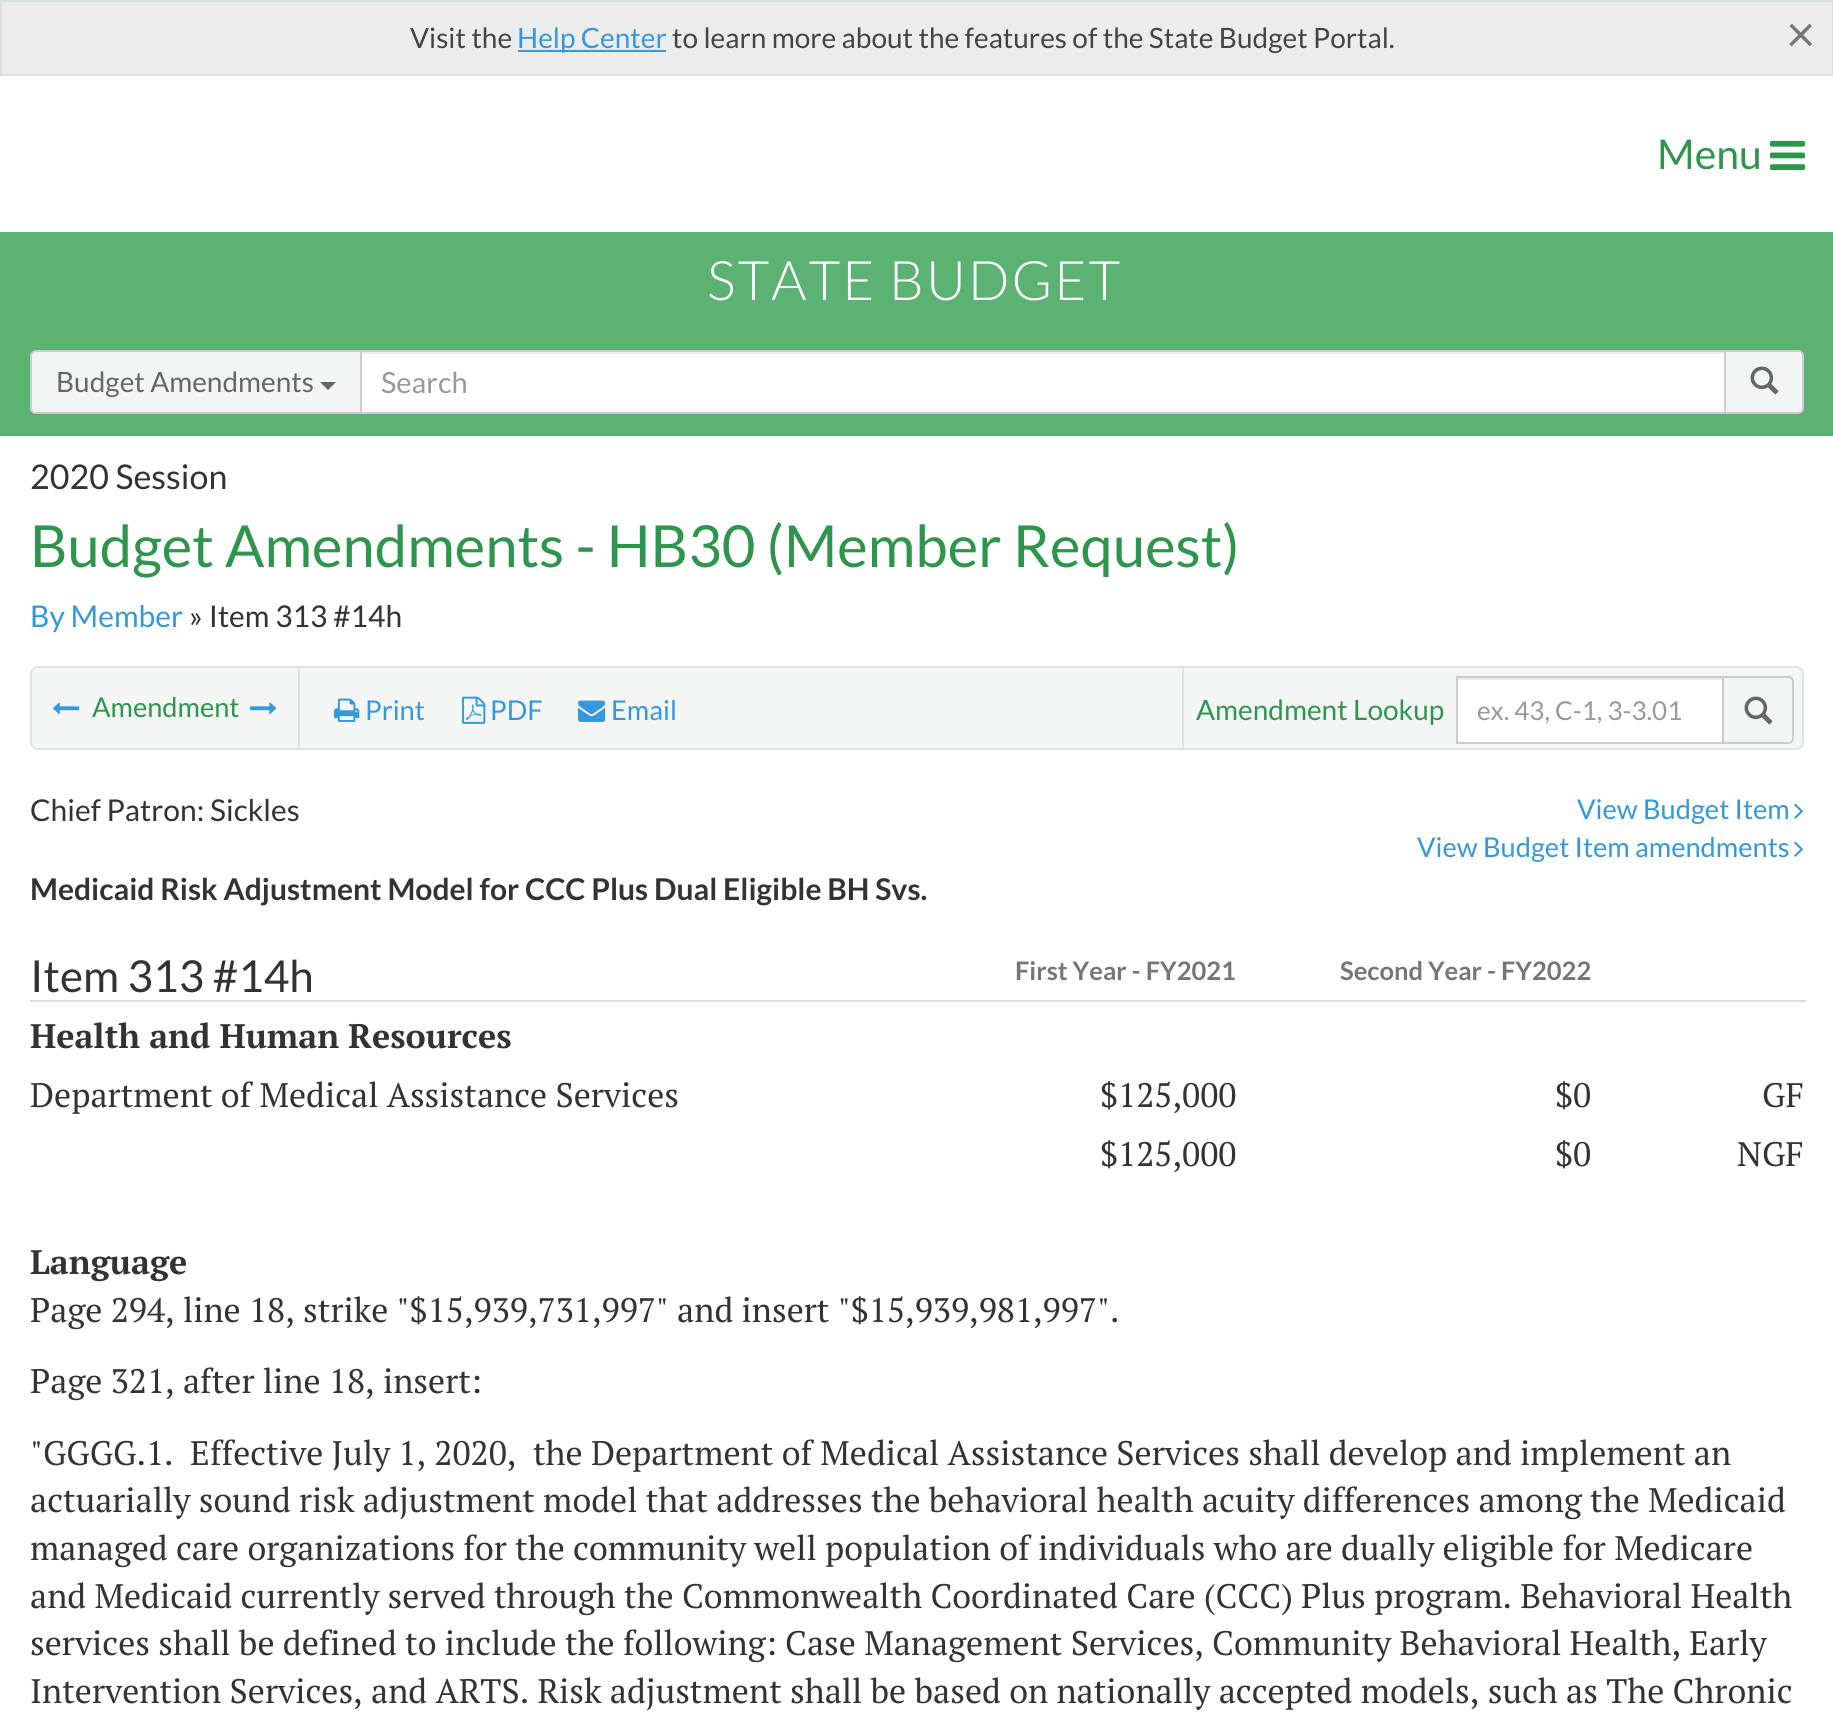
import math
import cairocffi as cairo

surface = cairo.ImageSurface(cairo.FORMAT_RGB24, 1833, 1721)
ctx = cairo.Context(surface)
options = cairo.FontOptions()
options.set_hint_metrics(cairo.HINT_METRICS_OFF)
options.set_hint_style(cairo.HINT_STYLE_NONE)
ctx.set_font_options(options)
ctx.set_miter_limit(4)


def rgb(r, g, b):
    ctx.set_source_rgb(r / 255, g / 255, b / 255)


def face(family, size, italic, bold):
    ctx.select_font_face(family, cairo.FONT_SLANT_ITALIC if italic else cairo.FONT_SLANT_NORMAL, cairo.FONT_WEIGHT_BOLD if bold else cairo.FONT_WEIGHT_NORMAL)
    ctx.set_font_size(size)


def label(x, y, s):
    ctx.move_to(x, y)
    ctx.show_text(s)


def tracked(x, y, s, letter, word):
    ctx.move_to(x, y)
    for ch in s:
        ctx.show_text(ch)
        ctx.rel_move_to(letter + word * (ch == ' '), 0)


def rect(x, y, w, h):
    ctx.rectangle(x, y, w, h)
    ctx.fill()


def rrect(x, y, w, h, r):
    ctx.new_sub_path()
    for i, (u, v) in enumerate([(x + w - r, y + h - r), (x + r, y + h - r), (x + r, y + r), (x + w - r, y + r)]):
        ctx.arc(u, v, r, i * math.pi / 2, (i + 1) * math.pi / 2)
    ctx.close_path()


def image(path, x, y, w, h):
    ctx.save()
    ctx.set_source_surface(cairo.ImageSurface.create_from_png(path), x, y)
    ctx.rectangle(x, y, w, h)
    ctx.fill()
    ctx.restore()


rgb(255, 255, 255)
ctx.paint()
rgb(236, 236, 236)
ctx.rectangle(1, 1, 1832, 74)
ctx.fill_preserve()
rgb(217, 224, 218)
ctx.stroke()
face('Lato', 28, 0, 0)
rgb(68, 68, 68)
label(410, 48, 'Visit the')
rgb(52, 152, 219)
rect(518, 50, 148, 2)
label(517, 48, 'Help Center')
rgb(68, 68, 68)
label(672, 48, 'to learn more about the features of the State Budget Portal.')
face('Lato', 51, 0, 0)
rgb(118, 118, 118)
label(1786, 52, '×')
face('Lato', 41, 0, 0)
rgb(46, 149, 76)
label(1657, 169, 'Menu')
image('image0.png', 1770, 140, 35, 30)
rgb(91, 178, 114)
rect(0, 232, 1833, 204)
face('Lato Light', 54.5, 0, 0)
rgb(255, 255, 255)
tracked(707, 300, 'STATE BUDGET', 2, 0)
rect(362, 354, 1362, 58)
rgb(236, 236, 236)
rect(362, 352, 1362, 2)
ctx.rectangle(361, 351, 1364, 62)
rgb(204, 204, 204)
ctx.stroke()
rgb(243, 245, 245)
ctx.new_path()
ctx.move_to(36, 351)
ctx.line_to(361, 351)
ctx.line_to(361, 413)
ctx.line_to(36, 413)
ctx.curve_to(33, 413, 31, 411, 31, 408)
ctx.line_to(31, 356)
ctx.curve_to(31, 353, 33, 351, 36, 351)
ctx.close_path()
ctx.fill_preserve()
rgb(204, 204, 204)
ctx.stroke()
face('Lato', 28, 0, 0)
rgb(102, 102, 102)
label(56, 392, 'Budget Amendments')
ctx.new_path()
ctx.move_to(320, 382)
ctx.line_to(336, 382)
ctx.line_to(328, 390)
ctx.close_path()
ctx.fill()
face('Lato', 29, 0, 0)
rgb(153, 153, 153)
label(381, 393, 'Search')
rgb(243, 245, 245)
ctx.new_path()
ctx.move_to(1725, 351)
ctx.line_to(1798, 351)
ctx.curve_to(1801, 351, 1803, 353, 1803, 356)
ctx.line_to(1803, 408)
ctx.curve_to(1803, 411, 1801, 413, 1798, 413)
ctx.line_to(1725, 413)
ctx.close_path()
ctx.fill_preserve()
rgb(204, 204, 204)
ctx.stroke()
image('image1.png', 1750, 366, 29, 29)
face('Lato', 34, 0, 0)
rgb(51, 51, 51)
label(30, 489, '2020 Session')
face('Lato', 58, 0, 0)
rgb(46, 149, 76)
label(30, 567, 'Budget Amendments - HB30 (Member Request)')
face('Lato', 30, 0, 0)
rgb(52, 152, 219)
label(30, 627, 'By Member')
rgb(51, 51, 51)
label(189, 627, '» Item 313 #14h')
rgb(244, 245, 245)
rrect(31, 667, 1772, 82, 7)
ctx.fill_preserve()
rgb(222, 226, 227)
ctx.stroke()
rect(298, 668, 2, 80)
image('image2.png', 53, 702, 27, 13)
face('Lato', 27.25, 0, 0)
rgb(46, 149, 76)
label(92, 717, 'Amendment')
image('image3.png', 250, 702, 27, 13)
image('image4.png', 334, 698, 26, 24)
rgb(52, 152, 219)
label(365, 720, 'Print')
image('image5.png', 462, 696, 24, 28)
label(490, 720, 'PDF')
image('image6.png', 578, 700, 28, 22)
label(611, 720, 'Email')
rgb(222, 226, 227)
rect(1182, 668, 2, 80)
face('Lato', 28, 0, 0)
rgb(46, 149, 76)
label(1196, 720, 'Amendment Lookup')
rgb(255, 255, 255)
rect(1458, 680, 264, 62)
rgb(236, 236, 236)
rect(1458, 678, 264, 2)
ctx.rectangle(1457, 677, 266, 66)
rgb(204, 204, 204)
ctx.stroke()
face('Lato', 26, 0, 0)
rgb(153, 153, 153)
label(1477, 720, 'ex. 43, C-1, 3-3.01')
rgb(243, 245, 245)
ctx.new_path()
ctx.move_to(1723, 677)
ctx.line_to(1788, 677)
ctx.curve_to(1791, 677, 1793, 679, 1793, 682)
ctx.line_to(1793, 738)
ctx.curve_to(1793, 741, 1791, 743, 1788, 743)
ctx.line_to(1723, 743)
ctx.close_path()
ctx.fill_preserve()
rgb(204, 204, 204)
ctx.stroke()
image('image1.png', 1744, 696, 29, 29)
face('Lato', 30, 0, 0)
rgb(51, 51, 51)
label(30, 821, 'Chief Patron: Sickles')
face('Lato', 30, 0, 1)
label(30, 900, 'Medicaid Risk Adjustment Model for CCC Plus Dual Eligible BH Svs.')
face('Lato', 44, 0, 0)
label(30, 992, 'Item 313 #14h')
face('Lato', 25.5, 0, 1)
rgb(118, 118, 118)
label(1015, 980, 'First Year - FY2021')
label(1340, 980, 'Second Year - FY2022')
rgb(221, 221, 221)
rect(30, 1000, 1776, 2)
face('PT Serif', 34, 0, 1)
rgb(51, 51, 51)
label(30, 1048, 'Health and Human Resources')
face('PT Serif', 34, 0, 0)
label(30, 1107, 'Department of Medical Assistance Services')
label(1100, 1107, '$125,000')
label(1555, 1107, '$0')
label(1762, 1107, 'GF')
label(1100, 1166, '$125,000')
label(1555, 1166, '$0')
label(1737, 1166, 'NGF')
face('PT Serif', 34, 0, 1)
label(30, 1274, 'Language')
face('PT Serif', 34, 0, 0)
label(30, 1322, 'Page 294, line 18, strike "$15,939,731,997" and insert "$15,939,981,997".')
label(30, 1393, 'Page 321, after line 18, insert:')
label(30, 1465, '"GGGG.1.  Effective July 1, 2020,  the Department of Medical Assistance Services shall develop and implement an')
label(30, 1512, 'actuarially sound risk adjustment model that addresses the behavioral health acuity differences among the Medicaid')
label(30, 1560, 'managed care organizations for the community well population of individuals who are dually eligible for Medicare')
label(30, 1608, 'and Medicaid currently served through the Commonwealth Coordinated Care (CCC) Plus program. Behavioral Health')
label(30, 1655, 'services shall be defined to include the following: Case Management Services, Community Behavioral Health, Early')
label(30, 1703, 'Intervention Services, and ARTS. Risk adjustment shall be based on nationally accepted models, such as The Chronic')
face('Lato', 27.25, 0, 0)
rgb(52, 152, 219)
label(1577, 819, 'View Budget Item')
image('image7.png', 1794, 803, 9, 16)
label(1417, 857, 'View Budget Item amendments')
image('image7.png', 1794, 841, 9, 16)
surface.write_to_png('render.png')
